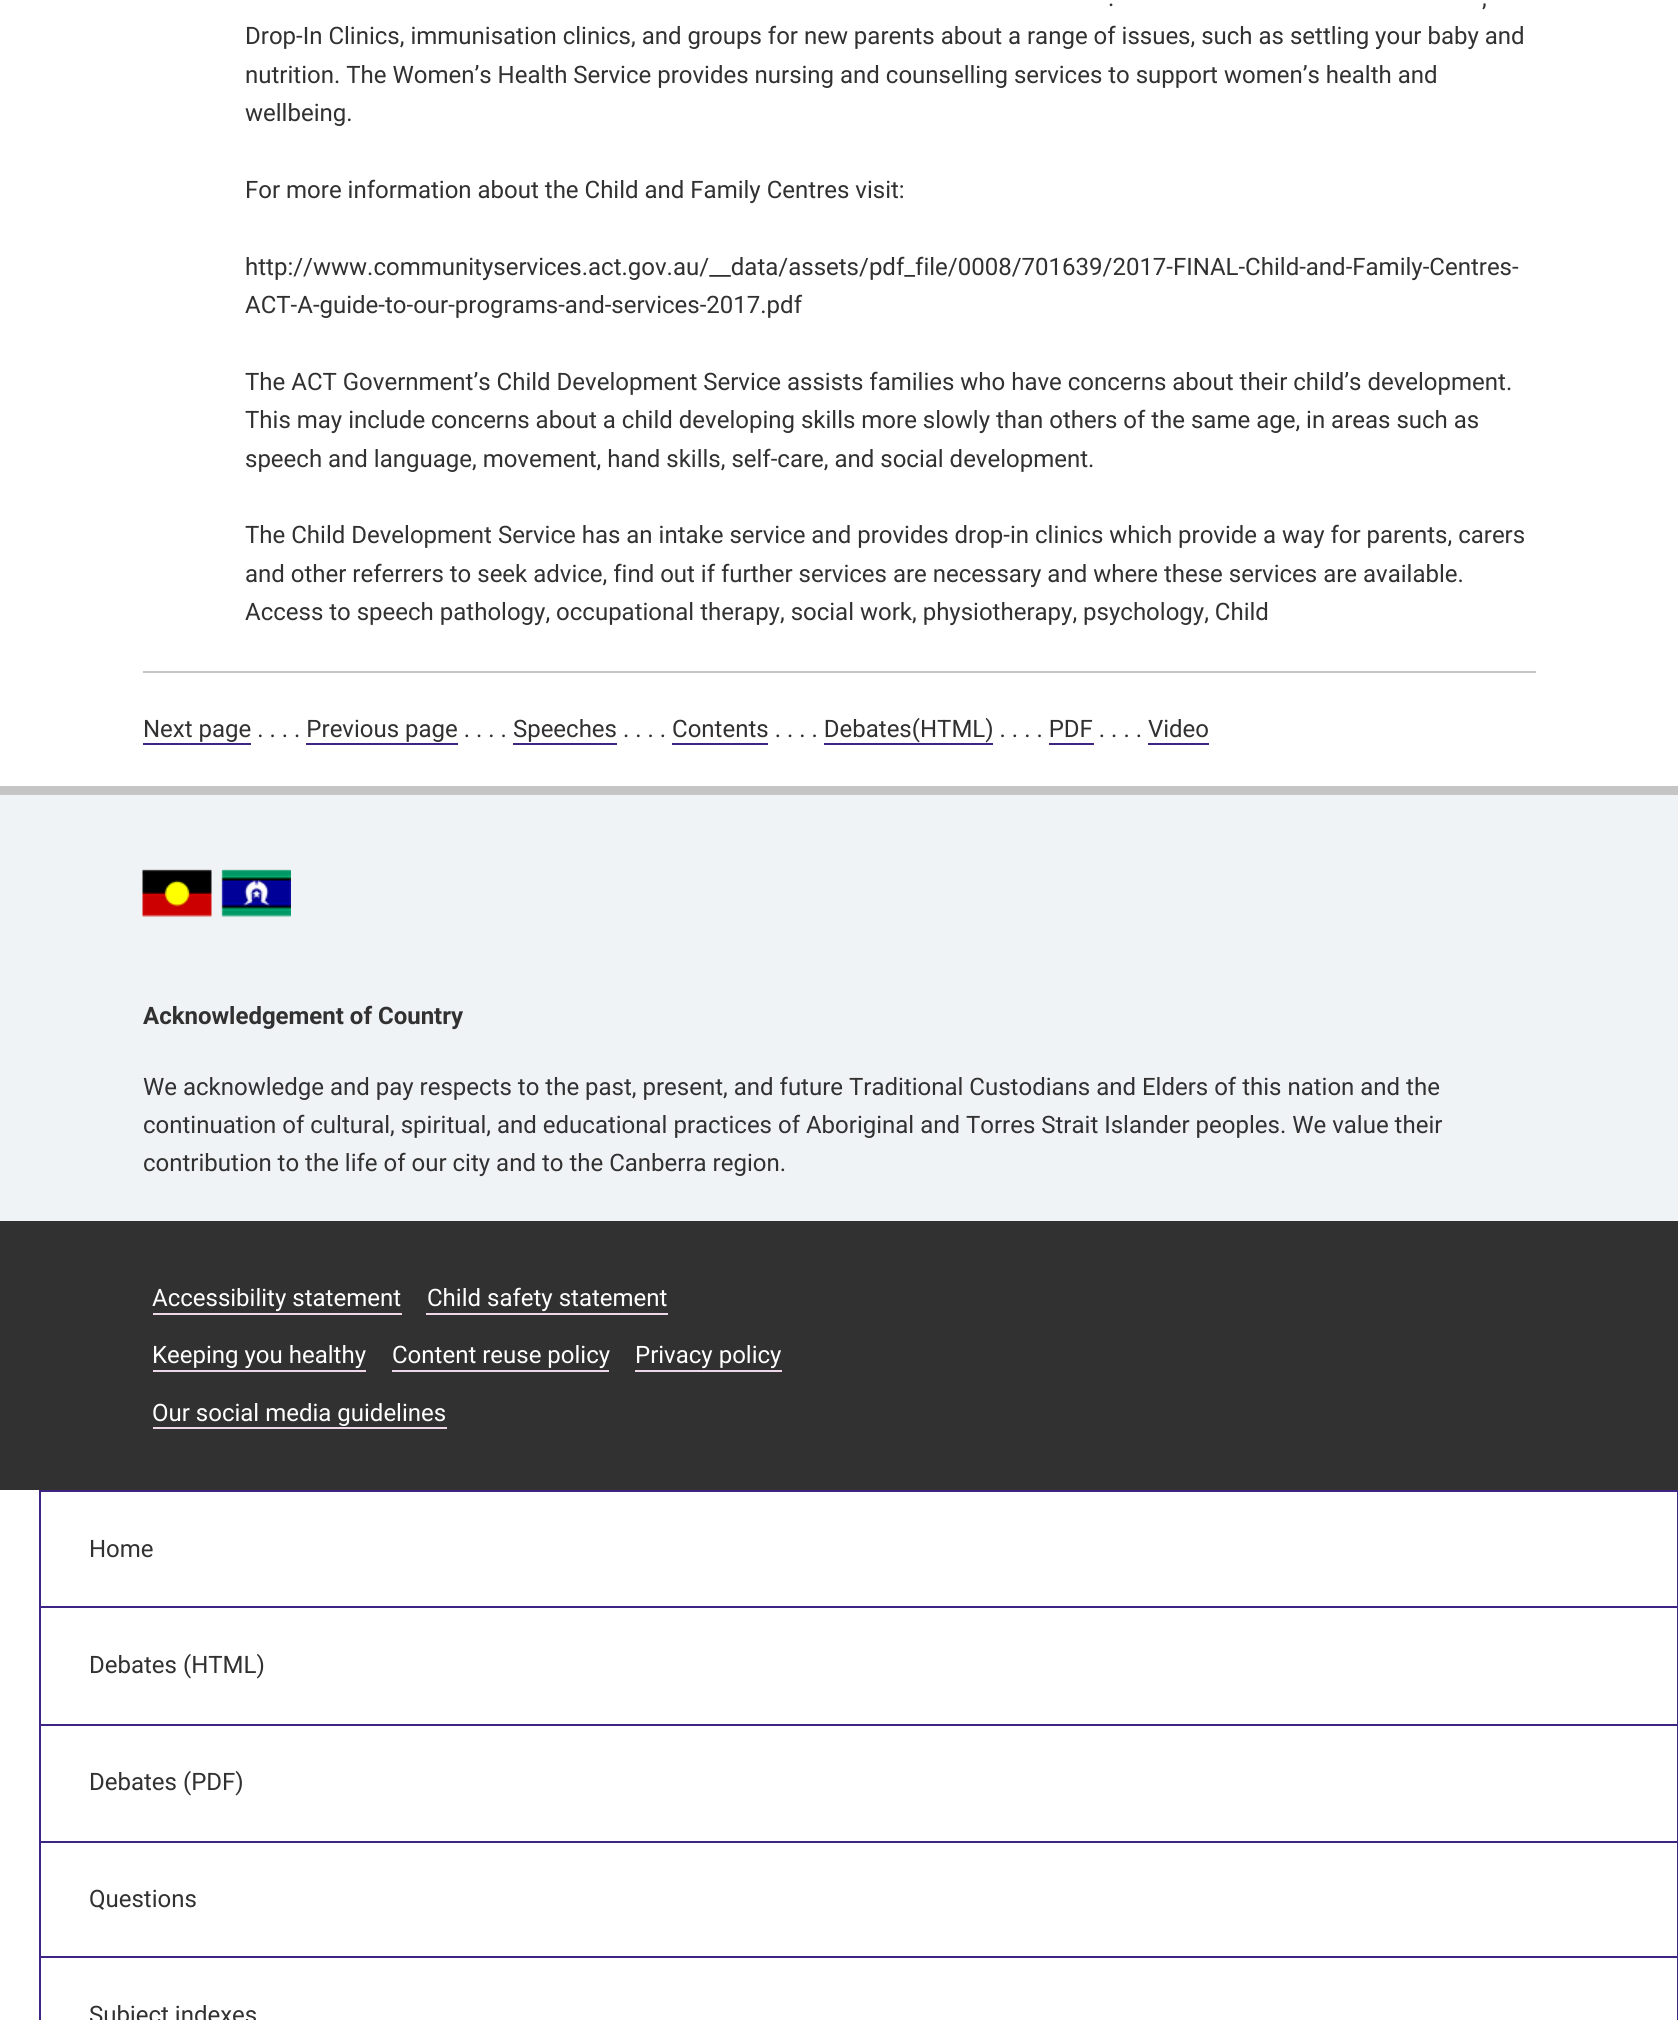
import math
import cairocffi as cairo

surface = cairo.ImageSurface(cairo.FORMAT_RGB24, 1678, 2020)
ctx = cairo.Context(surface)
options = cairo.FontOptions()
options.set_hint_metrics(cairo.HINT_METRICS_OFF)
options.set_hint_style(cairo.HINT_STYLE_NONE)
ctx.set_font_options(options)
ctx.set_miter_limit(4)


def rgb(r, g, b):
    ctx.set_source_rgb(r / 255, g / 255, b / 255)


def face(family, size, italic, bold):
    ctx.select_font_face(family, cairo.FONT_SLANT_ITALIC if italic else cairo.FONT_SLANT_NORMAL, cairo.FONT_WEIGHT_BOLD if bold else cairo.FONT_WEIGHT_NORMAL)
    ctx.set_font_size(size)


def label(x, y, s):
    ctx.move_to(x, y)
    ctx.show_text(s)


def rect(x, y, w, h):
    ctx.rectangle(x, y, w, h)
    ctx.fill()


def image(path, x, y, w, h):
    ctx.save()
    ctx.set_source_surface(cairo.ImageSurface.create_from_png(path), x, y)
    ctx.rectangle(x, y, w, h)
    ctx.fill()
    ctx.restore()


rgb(255, 255, 255)
ctx.paint()
face('Roboto', 24, 0, 0)
rgb(49, 49, 49)
label(1108, 6, '.')
label(1482, 6, ',')
label(245, 44, 'Drop-In Clinics, immunisation clinics, and groups for new parents about a range of issues, such as settling your baby and')
label(245, 83, 'nutrition. The Women’s Health Service provides nursing and counselling services to support women’s health and')
label(245, 121, 'wellbeing.')
label(245, 198, 'For more information about the Child and Family Centres visit:')
label(245, 275, 'http://www.communityservices.act.gov.au/__data/assets/pdf_file/0008/701639/2017-FINAL-Child-and-Family-Centres-')
label(245, 313, 'ACT-A-guide-to-our-programs-and-services-2017.pdf')
label(245, 390, 'The ACT Government’s Child Development Service assists families who have concerns about their child’s development.')
label(245, 428, 'This may include concerns about a child developing skills more slowly than others of the same age, in areas such as')
label(245, 467, 'speech and language, movement, hand skills, self-care, and social development.')
label(245, 543, 'The Child Development Service has an intake service and provides drop-in clinics which provide a way for parents, carers')
label(245, 582, 'and other referrers to seek advice, find out if further services are necessary and where these services are available.')
label(245, 620, 'Access to speech pathology, occupational therapy, social work, physiotherapy, psychology, Child')
rgb(197, 197, 197)
rect(143, 671, 1393, 2)
rgb(49, 49, 49)
label(143, 737, 'Next page . . . . Previous page . . . . Speeches . . . . Contents . . . . Debates(HTML) . . . . PDF . . . . Video')
rgb(63, 37, 131)
rect(143, 743, 108, 2)
rect(306, 743, 152, 2)
rect(513, 743, 104, 2)
rect(672, 743, 96, 2)
rect(824, 743, 169, 2)
rect(1049, 743, 45, 2)
rect(1148, 743, 61, 2)
rgb(240, 243, 245)
rect(0, 795, 1678, 426)
rgb(197, 197, 197)
rect(0, 786, 1678, 9)
image('image0.png', 142, 869, 149, 48)
face('Roboto', 24, 0, 1)
rgb(49, 49, 49)
label(143, 1024, 'Acknowledgement of Country')
face('Roboto', 24, 0, 0)
label(143, 1095, 'We acknowledge and pay respects to the past, present, and future Traditional Custodians and Elders of this nation and the')
label(143, 1133, 'continuation of cultural, spiritual, and educational practices of Aboriginal and Torres Strait Islander peoples. We value their')
label(143, 1171, 'contribution to the life of our city and to the Canberra region.')
rect(0, 1221, 1678, 269)
rgb(255, 255, 255)
label(152, 1306, 'Accessibility statement')
rgb(237, 215, 233)
rect(153, 1313, 249, 2)
rgb(255, 255, 255)
label(427, 1306, 'Child safety statement')
rgb(237, 215, 233)
rect(426, 1313, 242, 2)
rgb(255, 255, 255)
label(152, 1363, 'Keeping you healthy')
rgb(237, 215, 233)
rect(153, 1370, 213, 2)
rgb(255, 255, 255)
label(392, 1363, 'Content reuse policy')
rgb(237, 215, 233)
rect(392, 1370, 217, 2)
rgb(255, 255, 255)
label(635, 1363, 'Privacy policy')
rgb(237, 215, 233)
rect(635, 1370, 147, 2)
rgb(255, 255, 255)
label(152, 1421, 'Our social media guidelines')
rgb(237, 215, 233)
rect(153, 1427, 294, 2)
ctx.rectangle(40, 1491, 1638, 116)
rgb(63, 37, 131)
ctx.stroke()
rgb(49, 49, 49)
label(89, 1557, 'Home')
rgb(63, 37, 131)
rect(1677, 1608, 1, 117)
rect(39, 1724, 1639, 2)
rect(39, 1608, 2, 117)
rgb(49, 49, 49)
label(89, 1673, 'Debates (HTML)')
rgb(63, 37, 131)
rect(1677, 1725, 1, 117)
rect(39, 1841, 1639, 2)
rect(39, 1725, 2, 117)
rgb(49, 49, 49)
label(89, 1790, 'Debates (PDF)')
rgb(63, 37, 131)
rect(1677, 1842, 1, 178)
rect(39, 1956, 1639, 2)
rect(39, 1842, 2, 178)
rgb(49, 49, 49)
label(89, 1907, 'Questions')
label(89, 2023, 'Subject indexes')
surface.write_to_png('render.png')
